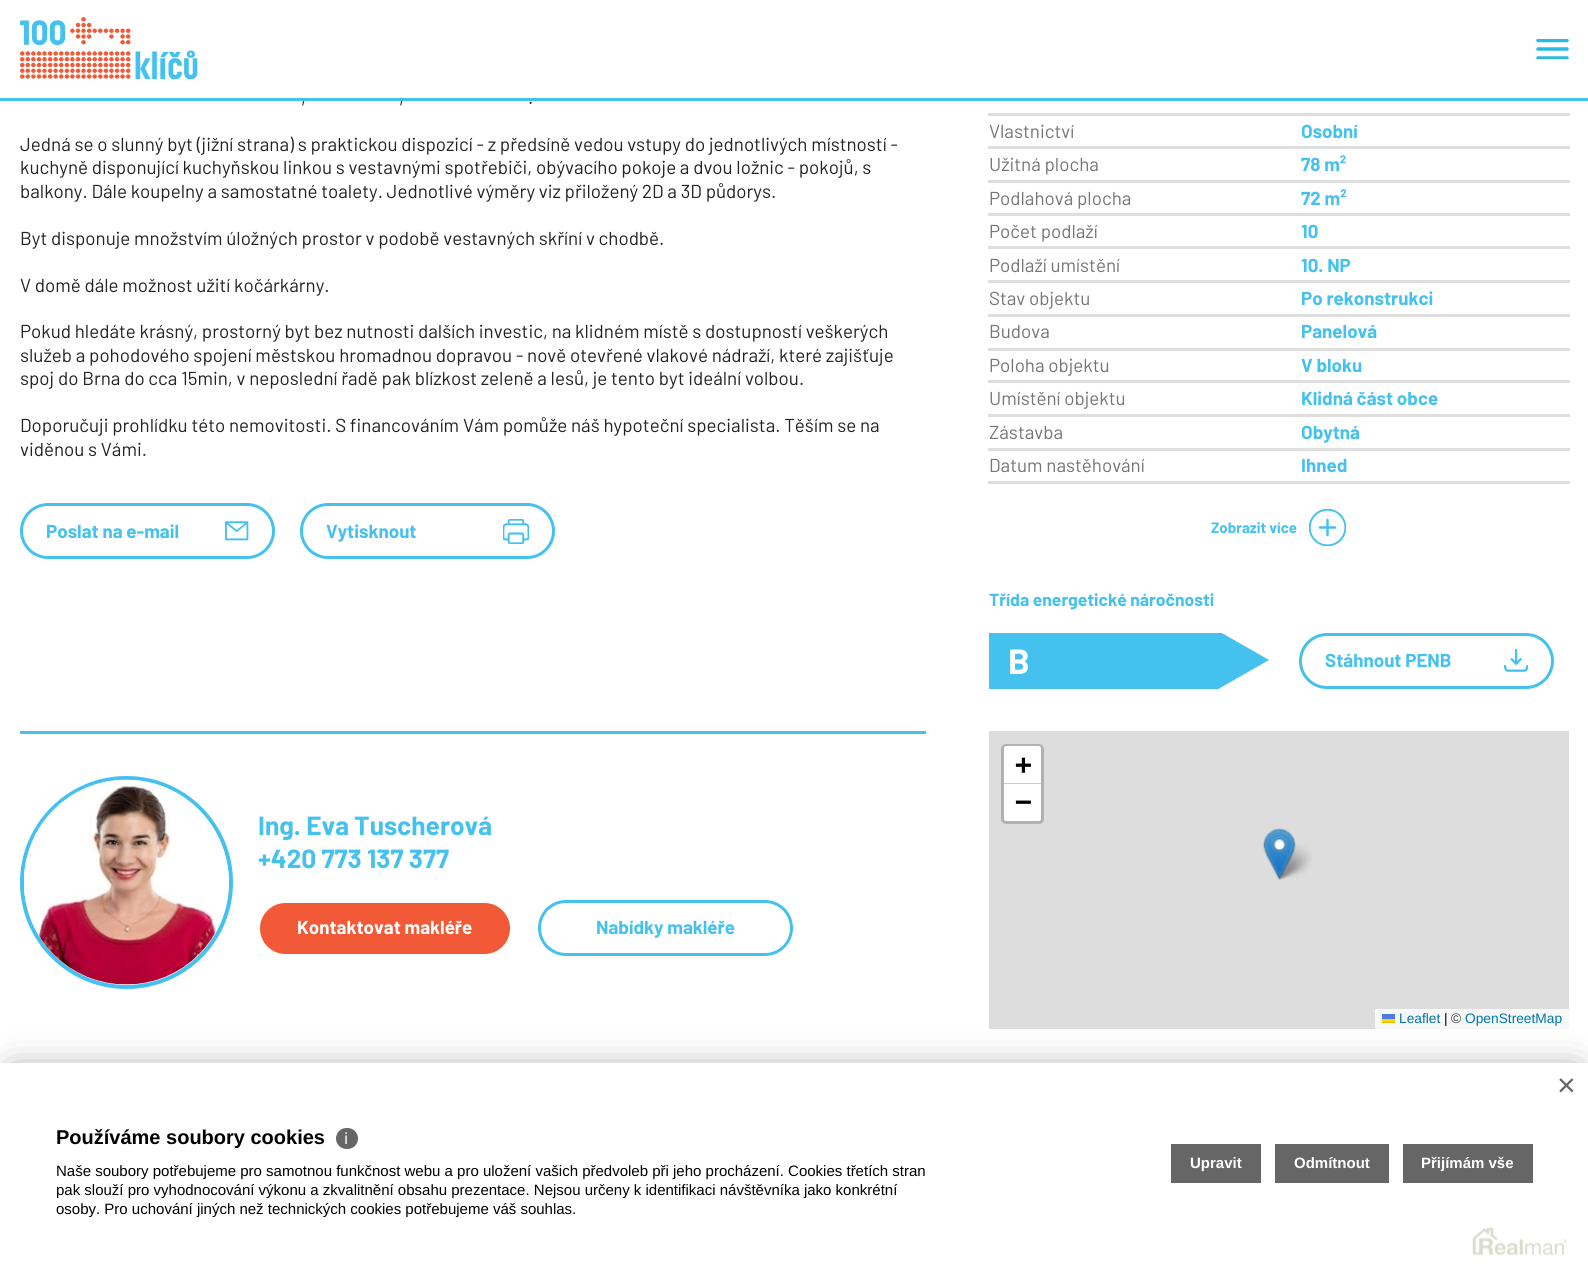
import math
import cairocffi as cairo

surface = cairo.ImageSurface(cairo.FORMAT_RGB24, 1588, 1276)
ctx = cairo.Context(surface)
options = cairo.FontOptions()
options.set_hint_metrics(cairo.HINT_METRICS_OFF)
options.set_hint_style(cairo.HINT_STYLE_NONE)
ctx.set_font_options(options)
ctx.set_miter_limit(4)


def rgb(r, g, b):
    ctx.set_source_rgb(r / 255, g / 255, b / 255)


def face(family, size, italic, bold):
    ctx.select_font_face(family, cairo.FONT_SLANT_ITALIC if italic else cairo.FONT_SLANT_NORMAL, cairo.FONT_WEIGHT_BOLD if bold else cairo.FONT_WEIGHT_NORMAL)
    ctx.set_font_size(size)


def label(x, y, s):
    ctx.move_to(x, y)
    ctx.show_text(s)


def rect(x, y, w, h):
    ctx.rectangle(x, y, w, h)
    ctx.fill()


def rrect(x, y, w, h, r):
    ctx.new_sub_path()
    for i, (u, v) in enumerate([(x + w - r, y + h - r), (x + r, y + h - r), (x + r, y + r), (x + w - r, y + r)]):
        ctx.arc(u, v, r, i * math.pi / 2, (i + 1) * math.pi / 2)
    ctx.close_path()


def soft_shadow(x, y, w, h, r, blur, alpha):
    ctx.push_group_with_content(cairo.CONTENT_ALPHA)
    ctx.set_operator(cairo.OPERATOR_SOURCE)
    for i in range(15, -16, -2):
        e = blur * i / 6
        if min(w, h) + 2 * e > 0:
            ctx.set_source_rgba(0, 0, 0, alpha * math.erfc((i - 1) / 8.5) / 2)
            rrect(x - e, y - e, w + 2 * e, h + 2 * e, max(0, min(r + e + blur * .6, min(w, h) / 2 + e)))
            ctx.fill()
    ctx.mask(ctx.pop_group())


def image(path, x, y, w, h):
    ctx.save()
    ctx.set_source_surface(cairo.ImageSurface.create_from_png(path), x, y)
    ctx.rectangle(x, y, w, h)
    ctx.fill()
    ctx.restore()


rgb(255, 255, 255)
ctx.paint()
rgb(68, 193, 238)
rect(0, 98, 1588, 3)
image('image0.png', 20, 17, 178, 63)
ctx.save()
ctx.rectangle(1536, 39, 33, 20)
ctx.clip()
ctx.new_path()
ctx.move_to(1567, 40.5)
ctx.line_to(1538, 40.5)
ctx.move_to(1567, 58)
ctx.line_to(1538, 58)
rgb(39, 186, 226)
ctx.set_line_width(3.5)
ctx.set_line_cap(cairo.LINE_CAP_ROUND)
ctx.stroke()
ctx.restore()
ctx.new_path()
ctx.move_to(1567, 49)
ctx.line_to(1538, 49)
rgb(39, 186, 226)
ctx.set_line_width(3.5)
ctx.set_line_cap(cairo.LINE_CAP_ROUND)
ctx.stroke()
rgb(68, 193, 238)
rect(20, 731, 906, 3)
face('Barlow', 18.75, 0, 0)
rgb(35, 35, 35)
label(301, 104, ',')
label(399, 104, ',')
label(528, 104, '.')
label(20, 151, 'Jedná se o slunný byt (jižní strana) s praktickou dispozicí - z předsíně vedou vstupy do jednotlivých místností -')
label(20, 174, 'kuchyně disponující kuchyňskou linkou s vestavnými spotřebiči, obývacího pokoje a dvou ložnic - pokojů, s')
label(20, 198, 'balkony. Dále koupelny a samostatné toalety. Jednotlivé výměry viz přiložený 2D a 3D půdorys.')
label(20, 245, 'Byt disponuje množstvím úložných prostor v podobě vestavných skříní v chodbě.')
label(20, 292, 'V domě dále možnost užití kočárkárny.')
label(20, 338, 'Pokud hledáte krásný, prostorný byt bez nutnosti dalších investic, na klidném místě s dostupností veškerých')
label(20, 362, 'služeb a pohodového spojení městskou hromadnou dopravou - nově otevřené vlakové nádraží, které zajišťuje')
label(20, 385, 'spoj do Brna do cca 15min, v neposlední řadě pak blízkost zeleně a lesů, je tento byt ideální volbou.')
label(20, 432, 'Doporučuji prohlídku této nemovitosti. S financováním Vám pomůže náš hypoteční specialista. Těším se na')
label(20, 456, 'viděnou s Vámi.')
image('image1.png', 225, 521, 24, 20)
rrect(21.5, 504.5, 252, 53, 26.5)
rgb(68, 193, 238)
ctx.set_line_width(3)
ctx.set_line_cap(cairo.LINE_CAP_BUTT)
ctx.stroke()
face('Barlow', 18.75, 0, 1)
label(46, 538, 'Poslat na e-mail')
image('image2.png', 503, 519, 26, 25)
rrect(301.5, 504.5, 252, 53, 26.5)
ctx.stroke()
label(326, 538, 'Vytisknout')
rgb(222, 222, 222)
rect(988, 113, 582, 3)
face('Barlow', 18.75, 0, 0)
rgb(117, 117, 117)
label(989, 138, 'Vlastnictví')
rgb(222, 222, 222)
rect(988, 146, 582, 3)
face('Barlow', 18.75, 0, 1)
rgb(68, 193, 238)
label(1301, 138, 'Osobní')
face('Barlow', 18.75, 0, 0)
rgb(117, 117, 117)
label(989, 171, 'Užitná plocha')
rgb(222, 222, 222)
rect(988, 180, 582, 3)
face('Barlow', 18.75, 0, 1)
rgb(68, 193, 238)
label(1301, 171, '78 m²')
face('Barlow', 18.75, 0, 0)
rgb(117, 117, 117)
label(989, 205, 'Podlahová plocha')
rgb(222, 222, 222)
rect(988, 213, 582, 3)
face('Barlow', 18.75, 0, 1)
rgb(68, 193, 238)
label(1301, 205, '72 m²')
face('Barlow', 18.75, 0, 0)
rgb(117, 117, 117)
label(989, 238, 'Počet podlaží')
rgb(222, 222, 222)
rect(988, 246, 582, 3)
face('Barlow', 18.75, 0, 1)
rgb(68, 193, 238)
label(1301, 238, '10')
face('Barlow', 18.75, 0, 0)
rgb(117, 117, 117)
label(989, 272, 'Podlaží umístění')
rgb(222, 222, 222)
rect(988, 280, 582, 3)
face('Barlow', 18.75, 0, 1)
rgb(68, 193, 238)
label(1301, 272, '10. NP')
face('Barlow', 18.75, 0, 0)
rgb(117, 117, 117)
label(989, 305, 'Stav objektu')
rgb(222, 222, 222)
rect(988, 314, 582, 3)
face('Barlow', 18.75, 0, 1)
rgb(68, 193, 238)
label(1301, 305, 'Po rekonstrukci')
face('Barlow', 18.75, 0, 0)
rgb(117, 117, 117)
label(989, 338, 'Budova')
rgb(222, 222, 222)
rect(988, 348, 582, 3)
face('Barlow', 18.75, 0, 1)
rgb(68, 193, 238)
label(1301, 338, 'Panelová')
face('Barlow', 18.75, 0, 0)
rgb(117, 117, 117)
label(989, 372, 'Poloha objektu')
rgb(222, 222, 222)
rect(988, 380, 582, 3)
face('Barlow', 18.75, 0, 1)
rgb(68, 193, 238)
label(1301, 372, 'V bloku')
face('Barlow', 18.75, 0, 0)
rgb(117, 117, 117)
label(989, 405, 'Umístění objektu')
rgb(222, 222, 222)
rect(988, 414, 582, 3)
face('Barlow', 18.75, 0, 1)
rgb(68, 193, 238)
label(1301, 405, 'Klidná část obce')
face('Barlow', 18.75, 0, 0)
rgb(117, 117, 117)
label(989, 439, 'Zástavba')
rgb(222, 222, 222)
rect(988, 448, 582, 3)
face('Barlow', 18.75, 0, 1)
rgb(68, 193, 238)
label(1301, 439, 'Obytná')
face('Barlow', 18.75, 0, 0)
rgb(117, 117, 117)
label(989, 472, 'Datum nastěhování')
rgb(222, 222, 222)
rect(988, 481, 582, 3)
face('Barlow', 18.75, 0, 1)
rgb(68, 193, 238)
label(1301, 472, 'Ihned')
face('Barlow', 15, 0, 1)
label(1211, 533, 'Zobrazit více')
image('image3.png', 1309, 509, 37, 37)
face('Barlow', 17.5, 0, 1)
label(989, 606, 'Třída energetické náročnosti')
rect(989, 633, 217, 56)
face('Barlow', 35, 0, 1)
rgb(255, 255, 255)
label(1008, 674, 'B')
ctx.save()
ctx.rectangle(1206, 633, 63, 56)
ctx.clip()
rgb(68, 193, 238)
ctx.set_fill_rule(cairo.FILL_RULE_EVEN_ODD)
ctx.new_path()
ctx.move_to(1206, 696)
ctx.line_to(1269, 660)
ctx.line_to(1206, 624)
ctx.close_path()
ctx.fill()
ctx.restore()
image('image4.png', 1504, 649, 24, 23)
rrect(1300.5, 634.5, 252, 53, 26.5)
rgb(68, 193, 238)
ctx.stroke()
face('Barlow', 18.75, 0, 1)
label(1325, 667, 'Stáhnout PENB')
ctx.new_path()
ctx.arc(126.5, 882.5, 104.5, 0, 2 * math.pi)
ctx.set_line_width(4)
ctx.stroke()
image('image5.png', 23, 779, 206, 206)
face('Barlow', 26.25, 0, 1)
label(258, 835, 'Ing. Eva Tuscherová')
label(258, 868, '+420 773 137 377')
rgb(242, 90, 55)
rrect(260, 903, 250, 51, 25.5)
ctx.fill()
face('Barlow', 18.75, 0, 1)
rgb(255, 255, 255)
label(297, 934, 'Kontaktovat makléře')
rrect(539.5, 901.5, 252, 53, 26.5)
rgb(68, 193, 238)
ctx.set_line_width(3)
ctx.stroke()
label(596, 934, 'Nabídky makléře')
rgb(221, 221, 221)
rect(989, 731, 580, 298)
rrect(1002.5, 745.5, 40, 77, 3.5)
rgb(177, 177, 177)
ctx.stroke()
rgb(255, 255, 255)
ctx.new_path()
ctx.move_to(1006.5, 746)
ctx.line_to(1038.5, 746)
ctx.curve_to(1040, 746, 1041, 747, 1041, 748.5)
ctx.line_to(1041, 784)
ctx.line_to(1004, 784)
ctx.line_to(1004, 748.5)
ctx.curve_to(1004, 747, 1005, 746, 1006.5, 746)
ctx.close_path()
ctx.fill()
rgb(204, 204, 204)
rect(1004, 783, 37, 1)
face('DejaVu Sans Mono', 28, 0, 1)
rgb(0, 0, 0)
label(1015, 774, '+')
rgb(255, 255, 255)
ctx.new_path()
ctx.move_to(1004, 784)
ctx.line_to(1041, 784)
ctx.line_to(1041, 818.5)
ctx.curve_to(1041, 820, 1040, 821, 1038.5, 821)
ctx.line_to(1006.5, 821)
ctx.curve_to(1005, 821, 1004, 820, 1004, 818.5)
ctx.close_path()
ctx.fill()
rgb(0, 0, 0)
label(1015, 811, '−')
rgb(248, 248, 248)
rect(1375, 1009, 194, 20)
face('Liberation Sans', 13.75, 0, 0)
rgb(0, 120, 168)
label(1399, 1023, 'Leaflet')
rgb(76, 123, 225)
rect(1382, 1014, 13, 5)
rgb(255, 213, 0)
rect(1382, 1019, 13, 3)
rgb(224, 188, 0)
rect(1382, 1022, 13, 1)
rgb(0, 0, 0)
label(1444, 1023, '|')
rgb(51, 51, 51)
label(1451, 1023, '©')
rgb(0, 120, 168)
label(1465, 1023, 'OpenStreetMap')
image('image7.png', 1275, 844, 37, 36)
image('image6.png', 1263, 828, 33, 52)
rgb(0, 0, 0)
soft_shadow(13, 1075, 1563, 189, 0, 19, 0.5)
rgb(255, 255, 255)
rect(0, 1063, 1588, 213)
image('image8.png', 1472, 1227, 95, 29)
face('Liberation Sans', 32, 0, 0)
rgb(102, 102, 102)
label(1557, 1096, '×')
face('Liberation Sans', 20, 0, 1)
rgb(0, 0, 0)
label(56, 1144, 'Používáme soubory cookies')
rgb(102, 102, 102)
rrect(336, 1128, 22, 21, 10.5)
ctx.fill()
face('Noto Sans', 16, 0, 0)
rgb(255, 255, 255)
label(344, 1144, 'ℹ')
face('Liberation Sans', 15, 0, 0)
rgb(0, 0, 0)
label(56, 1176, 'Naše soubory potřebujeme pro samotnou funkčnost webu a pro uložení vašich předvoleb při jeho procházení. Cookies třetích stran')
label(56, 1195, 'pak slouží pro vyhodnocování výkonu a zkvalitnění obsahu prezentace. Nejsou určeny k identifikaci návštěvníka jako konkrétní')
label(56, 1214, 'osoby. Pro uchování jiných než technických cookies potřebujeme váš souhlas.')
rgb(102, 102, 102)
rect(1171, 1144, 90, 39)
face('Liberation Sans', 15, 0, 1)
rgb(255, 255, 255)
label(1190, 1168, 'Upravit')
rgb(102, 102, 102)
rect(1275, 1144, 114, 39)
rgb(255, 255, 255)
label(1294, 1168, 'Odmítnout')
rgb(102, 102, 102)
rect(1403, 1144, 130, 39)
rgb(255, 255, 255)
label(1421, 1168, 'Přijímám vše')
surface.write_to_png('render.png')
